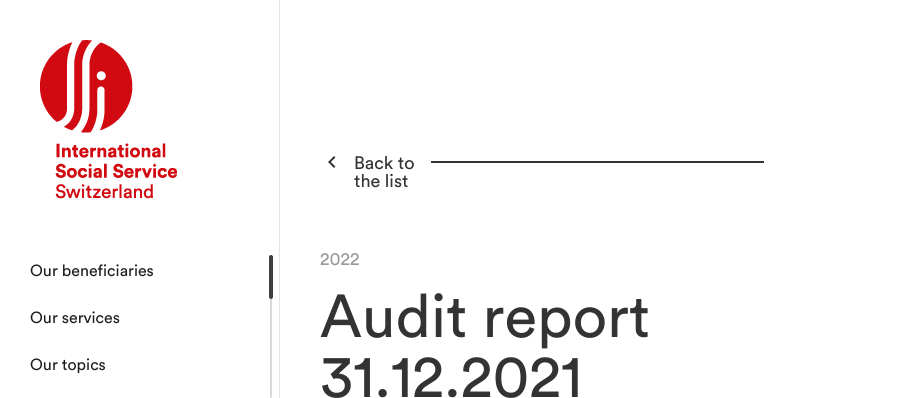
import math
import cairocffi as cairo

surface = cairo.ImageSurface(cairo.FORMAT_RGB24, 915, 398)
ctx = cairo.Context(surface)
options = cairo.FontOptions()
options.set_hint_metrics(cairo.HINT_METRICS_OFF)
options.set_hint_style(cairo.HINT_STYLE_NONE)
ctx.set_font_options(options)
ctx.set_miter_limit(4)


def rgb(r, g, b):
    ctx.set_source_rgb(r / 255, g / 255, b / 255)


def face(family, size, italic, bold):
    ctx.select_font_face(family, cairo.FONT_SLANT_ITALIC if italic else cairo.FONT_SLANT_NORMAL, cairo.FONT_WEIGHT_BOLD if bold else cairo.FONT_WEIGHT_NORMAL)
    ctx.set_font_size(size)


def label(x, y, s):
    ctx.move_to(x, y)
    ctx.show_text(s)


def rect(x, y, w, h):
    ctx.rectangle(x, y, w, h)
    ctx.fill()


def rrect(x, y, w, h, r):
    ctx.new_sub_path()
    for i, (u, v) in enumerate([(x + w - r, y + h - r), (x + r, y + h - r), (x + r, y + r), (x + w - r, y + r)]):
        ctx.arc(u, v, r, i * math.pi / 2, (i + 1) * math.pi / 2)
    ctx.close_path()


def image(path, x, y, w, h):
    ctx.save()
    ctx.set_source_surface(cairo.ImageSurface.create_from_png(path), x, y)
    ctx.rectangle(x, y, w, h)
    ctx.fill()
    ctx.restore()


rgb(255, 255, 255)
ctx.paint()
rgb(229, 229, 229)
rect(279, 0, 1, 398)
image('image0.png', 40, 40, 137, 159)
face('Circular', 16, 0, 0)
rgb(29, 29, 29)
label(30, 276, 'Our beneficiaries')
label(30, 323, 'Our services')
label(30, 370, 'Our topics')
rgb(217, 217, 217)
rrect(270, 255, 2, 143, 1)
ctx.fill()
rgb(64, 64, 64)
rrect(269, 255, 4, 44, 2)
ctx.fill()
image('image1.png', 328, 156, 8, 12)
face('Circular', 18, 0, 0)
rgb(51, 51, 51)
label(354, 169, 'Back to')
label(354, 187, 'the list')
rect(431, 161, 333, 2)
rgb(153, 153, 153)
label(320, 265, '2022')
face('Circular', 60, 0, 0)
rgb(51, 51, 51)
label(320, 337, 'Audit report')
label(320, 397, '31.12.2021')
surface.write_to_png('render.png')
